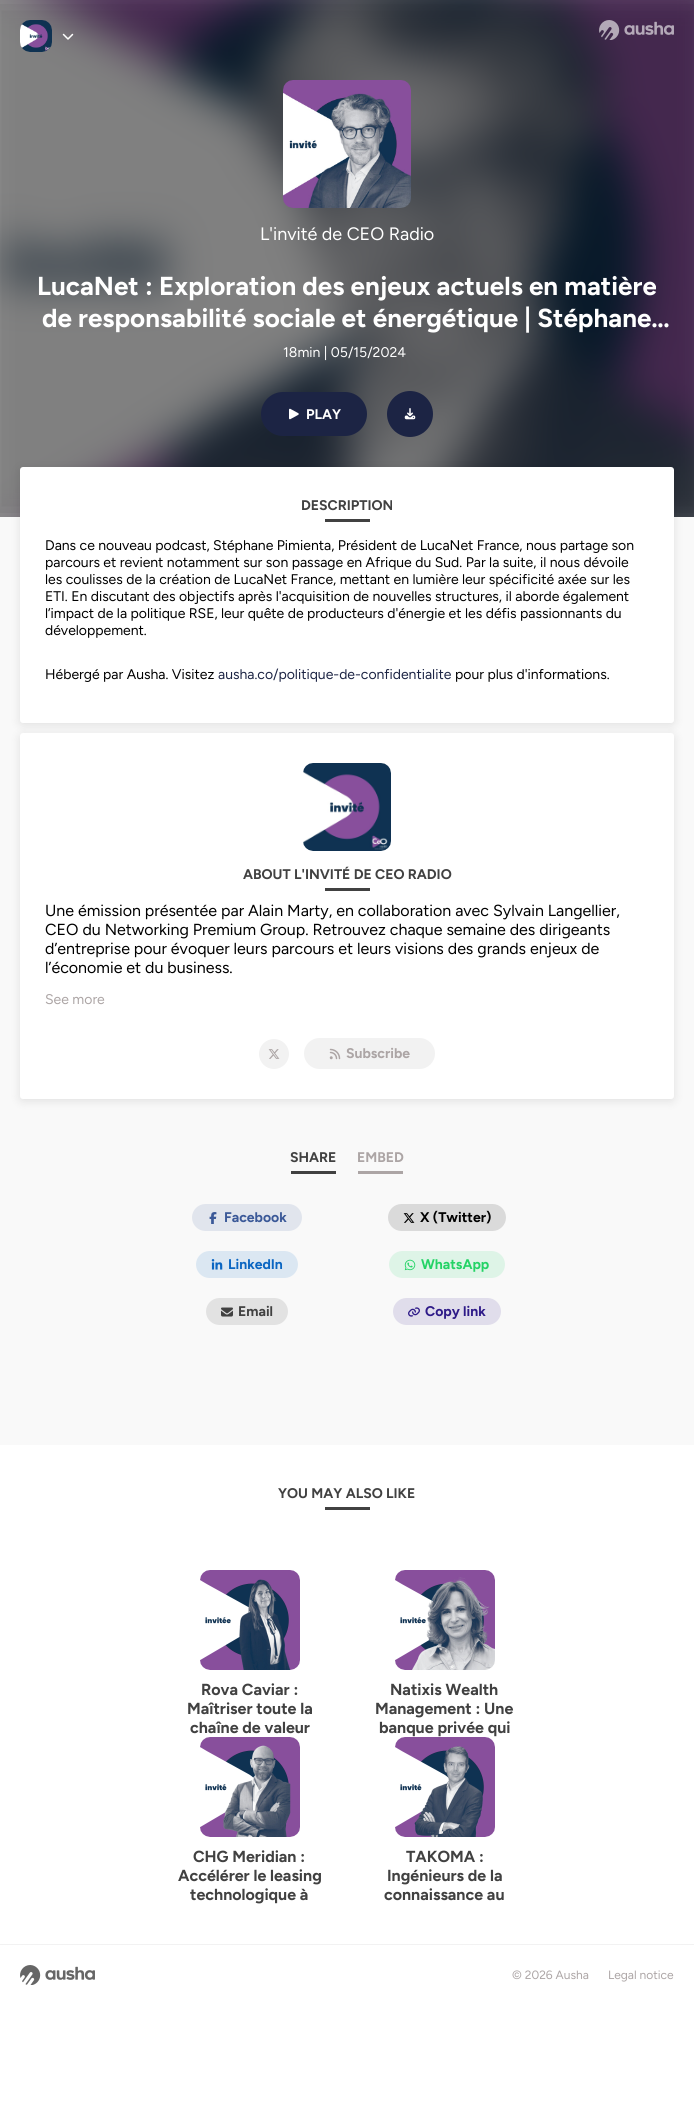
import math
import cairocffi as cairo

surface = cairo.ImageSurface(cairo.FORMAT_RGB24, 694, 2106)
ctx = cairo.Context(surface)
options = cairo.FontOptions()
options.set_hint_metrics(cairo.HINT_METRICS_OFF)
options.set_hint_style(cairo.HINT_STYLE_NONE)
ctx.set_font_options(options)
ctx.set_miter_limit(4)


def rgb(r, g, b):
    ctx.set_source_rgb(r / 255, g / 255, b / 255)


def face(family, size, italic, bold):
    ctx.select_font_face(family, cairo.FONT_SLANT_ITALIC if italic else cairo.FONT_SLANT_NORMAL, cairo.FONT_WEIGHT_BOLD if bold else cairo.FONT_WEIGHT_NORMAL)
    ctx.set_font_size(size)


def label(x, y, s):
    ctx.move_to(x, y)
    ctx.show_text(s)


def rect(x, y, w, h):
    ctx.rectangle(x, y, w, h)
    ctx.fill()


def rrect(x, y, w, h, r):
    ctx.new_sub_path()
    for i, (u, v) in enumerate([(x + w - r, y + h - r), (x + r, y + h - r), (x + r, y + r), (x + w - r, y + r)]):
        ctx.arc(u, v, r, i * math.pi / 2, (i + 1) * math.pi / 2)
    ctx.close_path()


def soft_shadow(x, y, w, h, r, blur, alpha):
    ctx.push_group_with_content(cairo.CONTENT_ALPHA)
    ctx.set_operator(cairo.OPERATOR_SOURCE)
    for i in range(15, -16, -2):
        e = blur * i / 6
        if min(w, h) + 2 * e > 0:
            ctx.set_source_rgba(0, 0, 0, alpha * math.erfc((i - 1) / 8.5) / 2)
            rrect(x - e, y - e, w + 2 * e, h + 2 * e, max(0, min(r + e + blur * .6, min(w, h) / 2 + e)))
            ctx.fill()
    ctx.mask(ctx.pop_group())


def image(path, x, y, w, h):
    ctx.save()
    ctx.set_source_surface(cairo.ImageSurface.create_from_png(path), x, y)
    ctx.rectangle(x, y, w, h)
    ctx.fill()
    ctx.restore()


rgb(255, 255, 255)
ctx.paint()
image('image0.png', 0, 0, 694, 517)
rgb(0, 0, 0)
soft_shadow(-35, -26, 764, 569, 0, 20, 0.5)
image('image1.png', 20, 20, 32, 32)
image('image2.png', 62, 33, 12, 7)
image('image3.png', 599, 20, 75, 20)
image('image4.png', 283, 80, 128, 128)
face('Figtree', 18, 0, 0)
rgb(255, 255, 255)
label(260, 240, 'L\'invité de CEO Radio')
face('Figtree', 26, 0, 1)
label(37, 295, 'LucaNet : Exploration des enjeux actuels en matière')
label(42, 327, 'de responsabilité sociale et énergétique | Stéphane…')
face('Figtree', 14, 0, 0)
label(283, 357, '18min | 05/15/2024')
rgb(28, 36, 68)
rrect(261, 392, 106, 44, 22)
ctx.fill()
image('image5.png', 289, 408, 10, 12)
face('Figtree', 14, 0, 1)
rgb(255, 255, 255)
label(306, 419, 'PLAY')
rgb(28, 36, 68)
ctx.new_path()
ctx.arc(410, 414, 23, 0, 2 * math.pi)
ctx.fill()
image('image6.png', 404, 408, 12, 12)
rgb(249, 249, 249)
rect(0, 517, 694, 928)
rgb(0, 0, 0)
soft_shadow(20, 469, 654, 256, 3, 5, 0.1)
rgb(255, 255, 255)
rrect(20, 467, 654, 256, 3)
ctx.fill()
rgb(65, 65, 65)
label(301, 510, 'DESCRIPTION')
rect(325, 519, 45, 3)
face('Figtree', 14, 0, 0)
rgb(0, 0, 0)
label(45, 550, 'Dans ce nouveau podcast, Stéphane Pimienta, Président de LucaNet France, nous partage son')
label(45, 567, 'parcours et revient notamment sur son passage en Afrique du Sud. Par la suite, il nous dévoile')
label(45, 584, 'les coulisses de la création de LucaNet France, mettant en lumière leur spécificité axée sur les')
label(45, 601, 'ETI. En discutant des objectifs après l\'acquisition de nouvelles structures, il aborde également')
label(45, 618, 'l’impact de la politique RSE, leur quête de producteurs d\'énergie et les défis passionnants du')
label(45, 635, 'développement.')
label(45, 679, 'Hébergé par Ausha. Visitez')
rgb(28, 36, 68)
label(218, 679, 'ausha.co/politique-de-confidentialite')
rgb(0, 0, 0)
label(455, 679, 'pour plus d\'informations.')
rgb(0, 0, 0)
soft_shadow(20, 735, 654, 366, 3, 5, 0.1)
rgb(255, 255, 255)
rrect(20, 733, 654, 366, 3)
ctx.fill()
image('image7.png', 303, 763, 88, 88)
face('Figtree', 14, 0, 1)
rgb(65, 65, 65)
label(243, 879, 'ABOUT L\'INVITÉ DE CEO RADIO')
rect(325, 888, 45, 3)
face('Figtree', 16, 0, 0)
rgb(0, 0, 0)
label(45, 916, 'Une émission présentée par Alain Marty, en collaboration avec Sylvain Langellier,')
label(45, 935, 'CEO du Networking Premium Group. Retrouvez chaque semaine des dirigeants')
label(45, 954, 'd’entreprise pour évoquer leurs parcours et leurs visions des grands enjeux de')
label(45, 973, 'l’économie et du business.')
face('Figtree', 14, 0, 0)
rgb(172, 165, 165)
label(45, 1004, 'See more')
rgb(242, 242, 242)
ctx.new_path()
ctx.arc(274, 1054, 15, 0, 2 * math.pi)
ctx.fill()
image('image8.png', 268, 1049, 12, 10)
rrect(304, 1038, 131, 31, 15.5)
ctx.fill()
image('image9.png', 329, 1048, 12, 12)
face('Figtree', 14, 0, 1)
rgb(172, 165, 165)
label(346, 1058, 'Subscribe')
rgb(65, 65, 65)
label(290, 1162, 'SHARE')
rect(291, 1171, 45, 3)
rgb(172, 165, 165)
label(357, 1162, 'EMBED')
rect(358, 1171, 45, 3)
rgb(225, 229, 237)
rrect(192, 1204, 110, 27, 13.5)
ctx.fill()
image('image10.png', 209, 1212, 8, 12)
rgb(59, 89, 152)
label(224, 1222, 'Facebook')
rgb(218, 218, 218)
rrect(388, 1204, 118, 27, 13.5)
ctx.fill()
image('image11.png', 403, 1213, 12, 10)
rgb(0, 0, 0)
label(420, 1222, 'X (Twitter)')
rgb(219, 231, 242)
rrect(196, 1251, 102, 27, 13.5)
ctx.fill()
image('image12.png', 211, 1259, 12, 11)
rgb(11, 102, 194)
label(228, 1269, 'LinkedIn')
rgb(222, 244, 231)
rrect(389, 1251, 116, 27, 13.5)
ctx.fill()
image('image13.png', 404, 1259, 12, 12)
rgb(36, 211, 102)
label(421, 1269, 'WhatsApp')
rgb(226, 226, 226)
rrect(206, 1298, 82, 27, 13.5)
ctx.fill()
image('image14.png', 221, 1307, 12, 10)
rgb(65, 65, 65)
label(238, 1316, 'Email')
rgb(224, 221, 235)
rrect(393, 1298, 108, 27, 13.5)
ctx.fill()
image('image15.png', 408, 1307, 12, 10)
rgb(46, 26, 136)
label(425, 1316, 'Copy link')
rgb(65, 65, 65)
label(278, 1498, 'YOU MAY ALSO LIKE')
rect(325, 1507, 45, 3)
image('image16.png', 200, 1570, 100, 100)
face('Figtree', 16, 0, 1)
label(201, 1695, 'Rova Caviar :')
label(187, 1714, 'Maîtriser toute la')
label(190, 1733, 'chaîne de valeur')
image('image17.png', 395, 1570, 100, 100)
label(390, 1695, 'Natixis Wealth')
label(375, 1714, 'Management : Une')
label(379, 1733, 'banque privée qui')
image('image18.png', 200, 1737, 100, 100)
label(193, 1862, 'CHG Meridian :')
label(178, 1881, 'Accélérer le leasing')
label(190, 1900, 'technologique à')
image('image19.png', 395, 1737, 100, 100)
label(406, 1862, 'TAKOMA :')
label(387, 1881, 'Ingénieurs de la')
label(384, 1900, 'connaissance au')
rgb(242, 242, 242)
rect(0, 1944, 694, 1)
image('image20.png', 20, 1965, 75, 20)
face('Figtree', 12, 0, 0)
rgb(172, 165, 165)
label(512, 1979, '© 2026 Ausha')
label(608, 1979, 'Legal notice')
surface.write_to_png('render.png')
